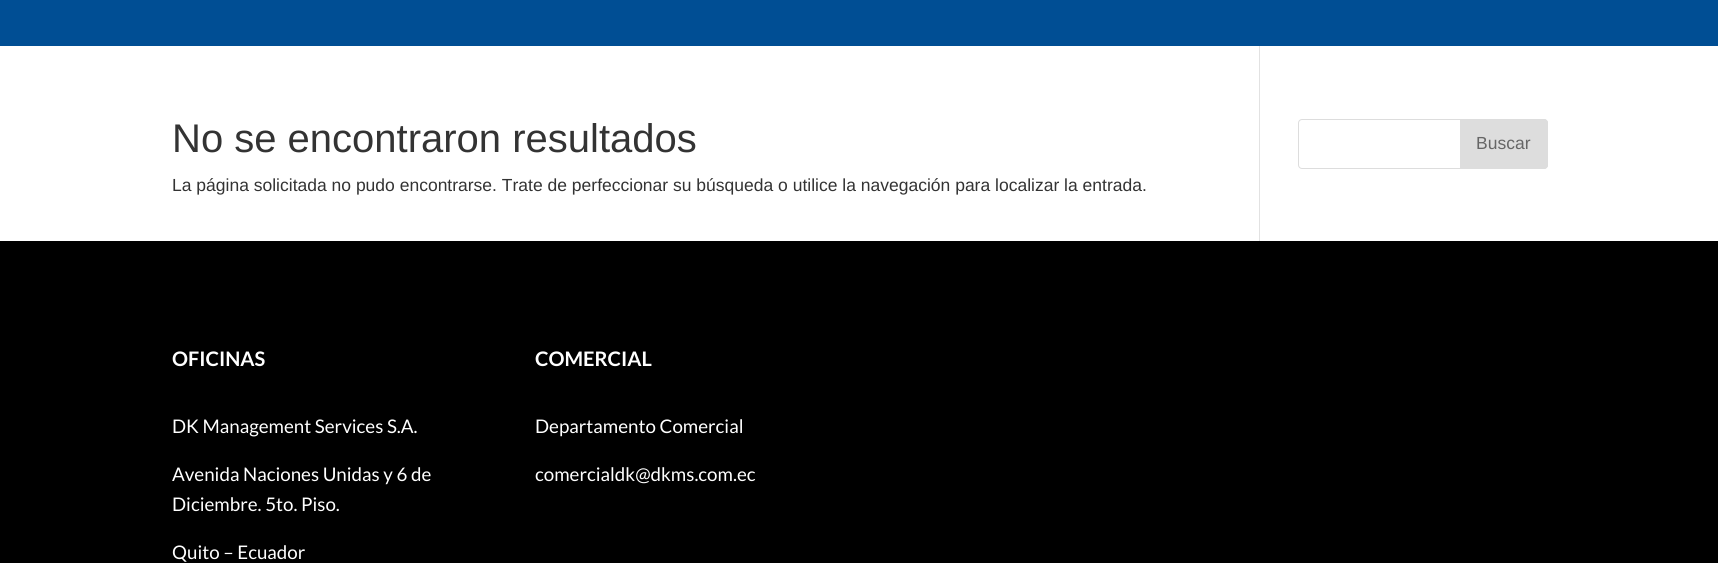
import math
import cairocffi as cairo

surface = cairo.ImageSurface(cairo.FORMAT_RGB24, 1718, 563)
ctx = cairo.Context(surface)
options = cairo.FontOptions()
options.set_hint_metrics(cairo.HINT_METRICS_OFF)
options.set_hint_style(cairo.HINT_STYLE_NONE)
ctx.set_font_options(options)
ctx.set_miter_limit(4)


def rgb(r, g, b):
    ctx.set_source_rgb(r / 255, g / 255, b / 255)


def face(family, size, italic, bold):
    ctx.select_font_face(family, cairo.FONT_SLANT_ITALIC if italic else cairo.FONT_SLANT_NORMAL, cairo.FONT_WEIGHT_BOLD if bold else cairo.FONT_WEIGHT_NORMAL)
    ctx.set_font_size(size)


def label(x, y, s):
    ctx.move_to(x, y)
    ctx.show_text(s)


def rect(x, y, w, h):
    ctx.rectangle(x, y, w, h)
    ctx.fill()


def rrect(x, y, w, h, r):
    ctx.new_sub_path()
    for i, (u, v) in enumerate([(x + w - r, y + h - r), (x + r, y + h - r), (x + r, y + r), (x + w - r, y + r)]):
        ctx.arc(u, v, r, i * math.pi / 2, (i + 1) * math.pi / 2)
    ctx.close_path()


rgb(0, 0, 0)
ctx.paint()
rgb(0, 78, 148)
rect(0, 0, 1718, 46)
rgb(255, 255, 255)
rect(0, 46, 1718, 195)
rgb(226, 226, 226)
rect(1259, 46, 1, 195)
face('Liberation Sans', 40, 0, 0)
rgb(51, 51, 51)
label(172, 152, 'No se encontraron resultados')
face('Liberation Sans', 17.5, 0, 0)
label(172, 191, 'La página solicitada no pudo encontrarse. Trate de perfeccionar su búsqueda o utilice la navegación para localizar la entrada.')
rrect(1298.5, 119.5, 249, 49, 3.5)
rgb(221, 221, 221)
ctx.set_line_width(1)
ctx.stroke()
ctx.new_path()
ctx.move_to(1460.5, 119.5)
ctx.line_to(1544, 119.5)
ctx.curve_to(1546, 119.5, 1547.5, 121, 1547.5, 123)
ctx.line_to(1547.5, 165)
ctx.curve_to(1547.5, 167, 1546, 168.5, 1544, 168.5)
ctx.line_to(1460.5, 168.5)
ctx.close_path()
ctx.fill_preserve()
ctx.stroke()
rgb(102, 102, 102)
label(1476, 149, 'Buscar')
face('Lato', 20, 0, 1)
rgb(255, 255, 255)
label(172, 366, 'OFICINAS')
face('Lato', 18.75, 0, 0)
label(172, 433, 'DK Management Services S.A.')
label(172, 481, 'Avenida Naciones Unidas y 6 de')
label(172, 511, 'Diciembre. 5to. Piso.')
label(172, 559, 'Quito – Ecuador')
face('Lato', 20, 0, 1)
label(535, 366, 'COMERCIAL')
face('Lato', 18.75, 0, 0)
label(535, 433, 'Departamento Comercial')
label(535, 481, 'comercialdk@dkms.com.ec')
surface.write_to_png('render.png')
